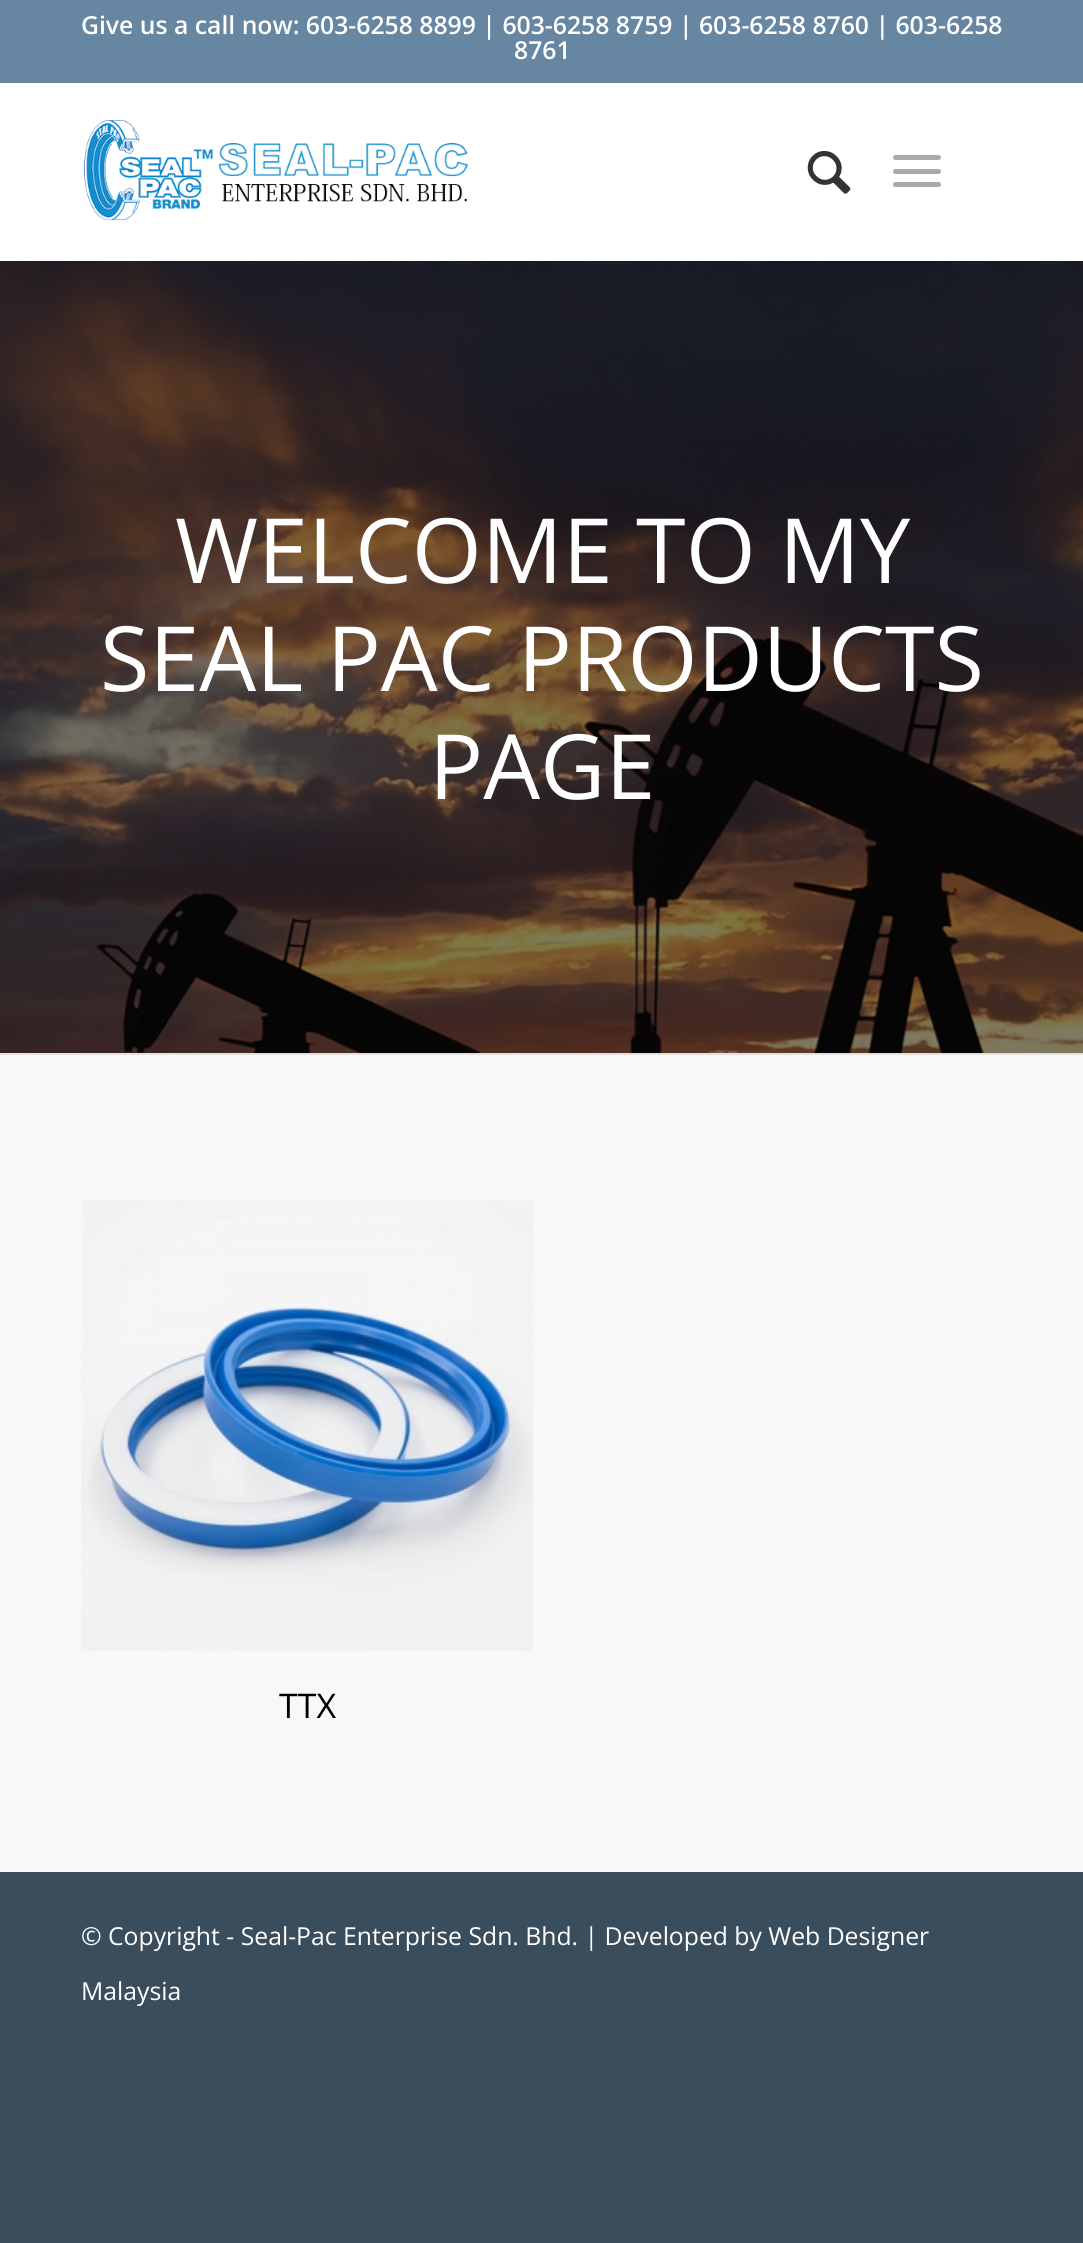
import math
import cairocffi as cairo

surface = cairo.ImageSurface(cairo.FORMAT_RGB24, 1083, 2243)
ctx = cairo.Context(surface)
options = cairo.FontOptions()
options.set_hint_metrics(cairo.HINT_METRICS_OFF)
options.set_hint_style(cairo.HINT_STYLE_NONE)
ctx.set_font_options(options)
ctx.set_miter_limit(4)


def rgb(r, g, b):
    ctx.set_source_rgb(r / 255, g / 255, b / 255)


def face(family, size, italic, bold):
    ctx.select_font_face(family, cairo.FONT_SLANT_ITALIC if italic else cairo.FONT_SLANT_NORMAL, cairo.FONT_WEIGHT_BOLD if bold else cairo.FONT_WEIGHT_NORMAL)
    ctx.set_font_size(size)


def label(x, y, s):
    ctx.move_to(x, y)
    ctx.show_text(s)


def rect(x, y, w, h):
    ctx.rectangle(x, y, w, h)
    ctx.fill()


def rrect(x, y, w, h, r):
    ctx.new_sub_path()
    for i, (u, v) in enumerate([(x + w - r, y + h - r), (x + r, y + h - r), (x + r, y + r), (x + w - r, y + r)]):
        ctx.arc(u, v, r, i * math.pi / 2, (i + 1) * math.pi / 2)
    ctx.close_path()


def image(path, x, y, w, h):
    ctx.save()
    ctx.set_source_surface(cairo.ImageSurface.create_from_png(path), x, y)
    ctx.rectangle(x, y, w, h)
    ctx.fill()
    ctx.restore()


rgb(58, 77, 92)
ctx.paint()
rgb(103, 134, 161)
rect(0, 0, 1083, 83)
face('Open Sans SemiBold', 24.75, 0, 0)
rgb(255, 255, 255)
label(81, 34, 'Give us a call now: 603-6258 8899 | 603-6258 8759 | 603-6258 8760 | 603-6258')
label(514, 59, '8761')
rect(0, 83, 1083, 178)
image('image0.png', 84, 120, 384, 101)
image('image1.png', 807, 151, 44, 43)
rgb(170, 170, 170)
rrect(893, 169, 48, 5, 2.5)
ctx.fill()
rrect(893, 155, 48, 5, 2.5)
ctx.fill()
rrect(893, 182, 48, 5, 2.5)
ctx.fill()
image('image2.png', 0, 261, 1083, 792)
face('Open Sans', 90, 0, 0)
rgb(255, 255, 255)
label(175, 583, 'WELCOME TO MY')
label(100, 691, 'SEAL PAC PRODUCTS')
label(429, 799, 'PAGE')
rgb(248, 248, 248)
rect(0, 1055, 1083, 817)
rgb(225, 225, 225)
rect(0, 1053, 1083, 2)
image('image3.png', 81, 1200, 452, 451)
face('Open Sans', 34, 0, 0)
rgb(0, 0, 0)
label(279, 1718, 'TTX')
face('Open Sans', 24.75, 0, 0)
rgb(255, 255, 255)
label(81, 1945, '© Copyright - Seal-Pac Enterprise Sdn. Bhd. | Developed by Web Designer')
label(81, 2000, 'Malaysia')
surface.write_to_png('render.png')
